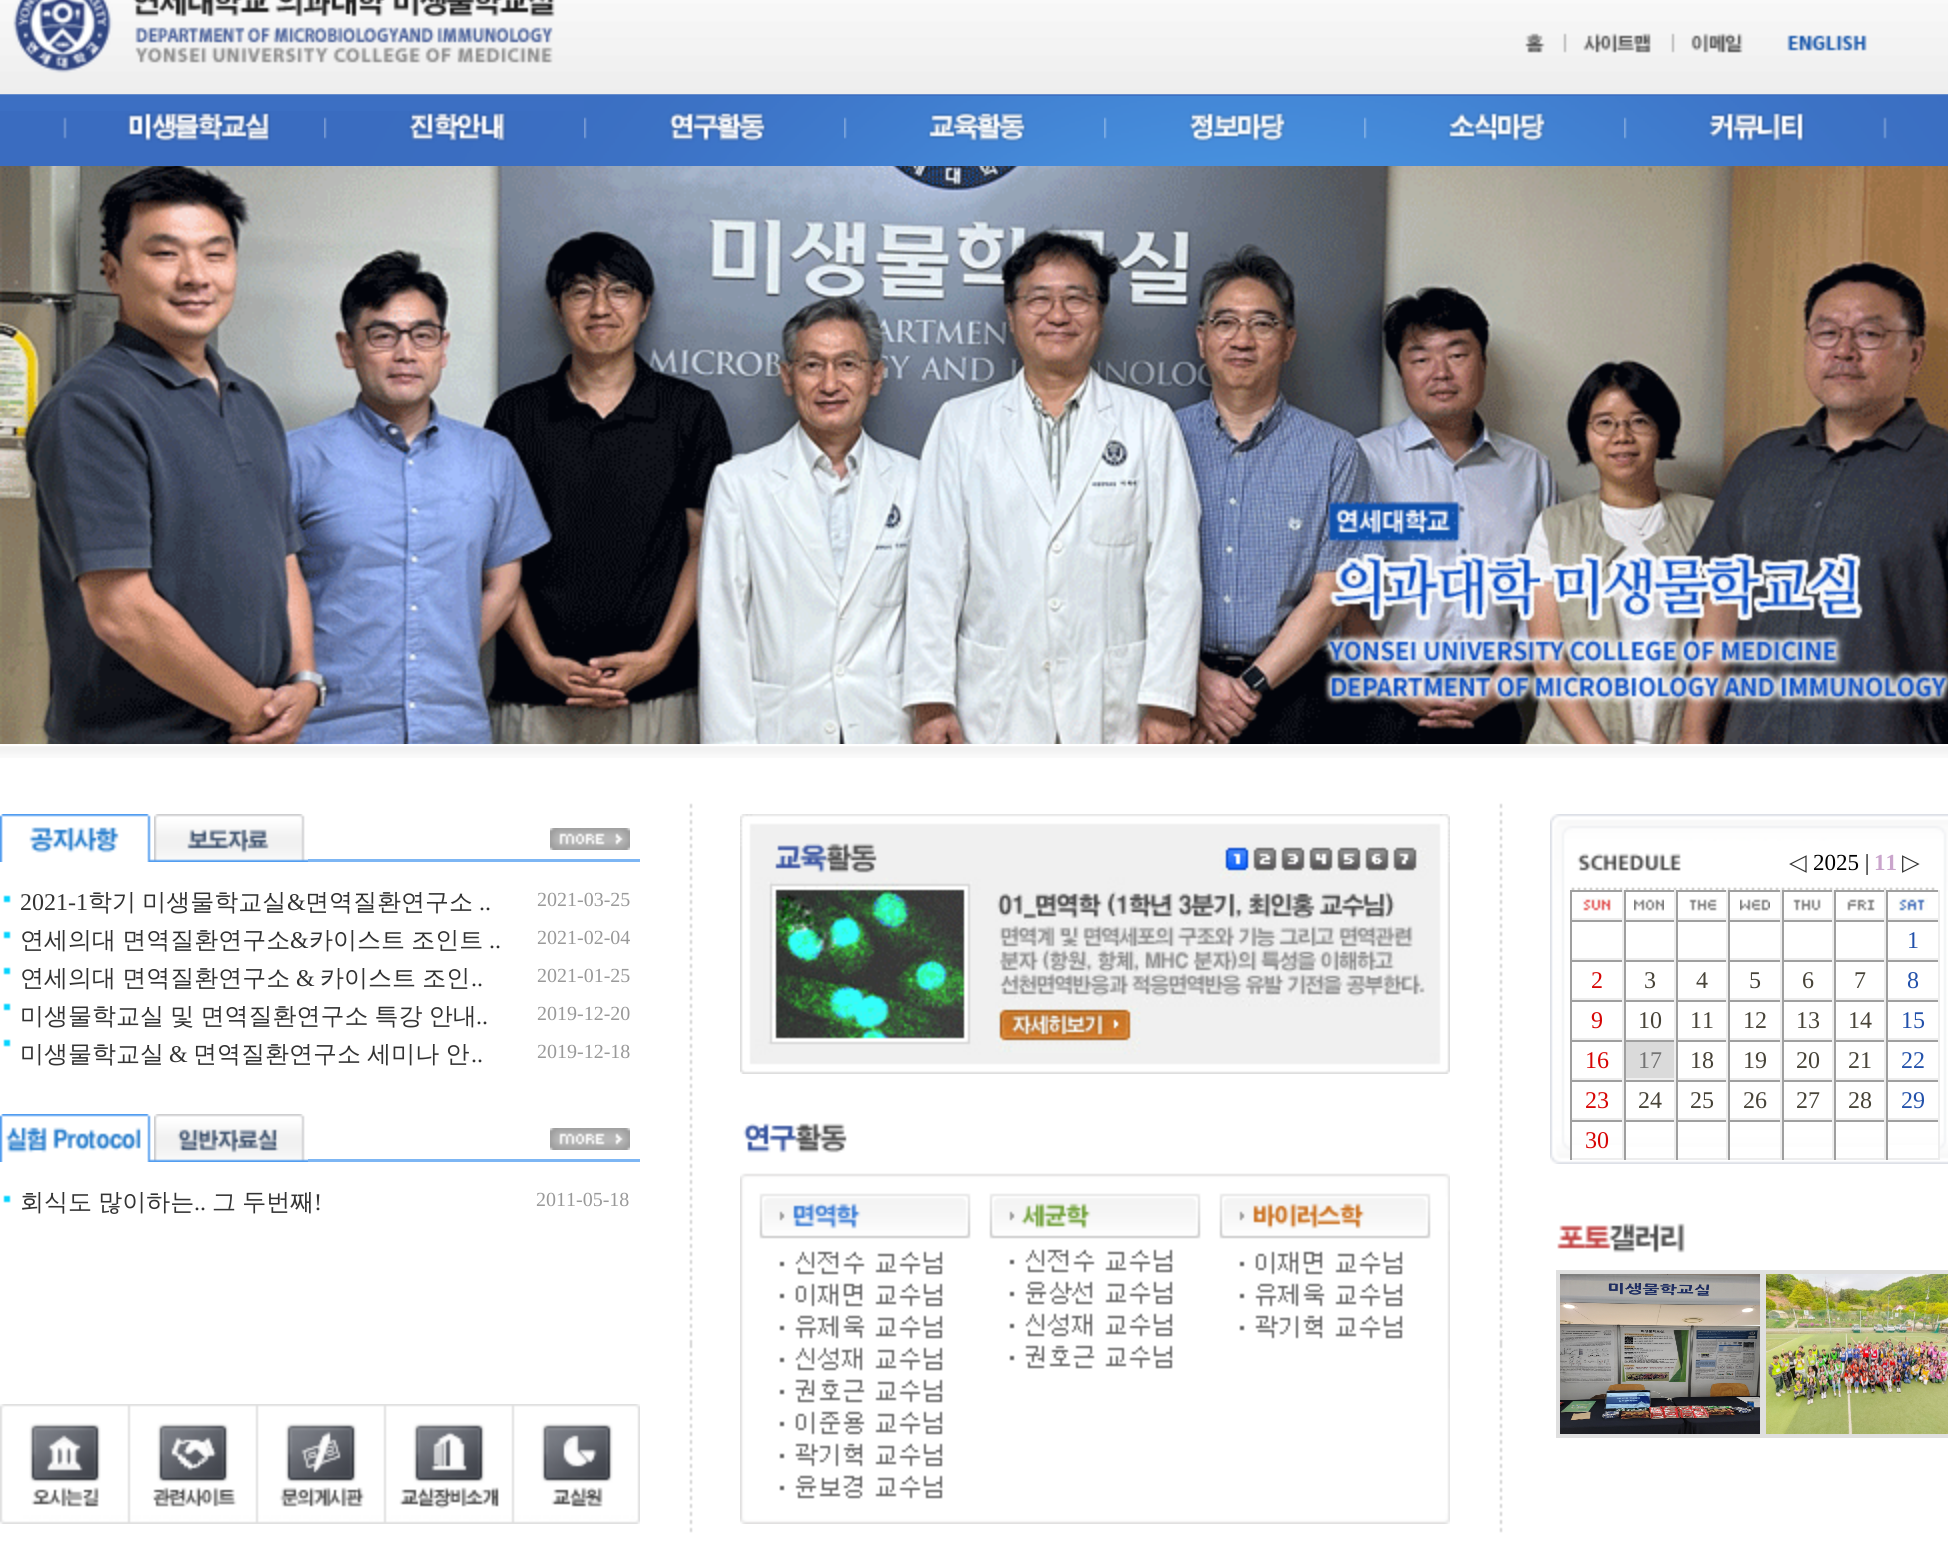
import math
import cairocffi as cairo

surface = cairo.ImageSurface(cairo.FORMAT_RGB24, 1948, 1550)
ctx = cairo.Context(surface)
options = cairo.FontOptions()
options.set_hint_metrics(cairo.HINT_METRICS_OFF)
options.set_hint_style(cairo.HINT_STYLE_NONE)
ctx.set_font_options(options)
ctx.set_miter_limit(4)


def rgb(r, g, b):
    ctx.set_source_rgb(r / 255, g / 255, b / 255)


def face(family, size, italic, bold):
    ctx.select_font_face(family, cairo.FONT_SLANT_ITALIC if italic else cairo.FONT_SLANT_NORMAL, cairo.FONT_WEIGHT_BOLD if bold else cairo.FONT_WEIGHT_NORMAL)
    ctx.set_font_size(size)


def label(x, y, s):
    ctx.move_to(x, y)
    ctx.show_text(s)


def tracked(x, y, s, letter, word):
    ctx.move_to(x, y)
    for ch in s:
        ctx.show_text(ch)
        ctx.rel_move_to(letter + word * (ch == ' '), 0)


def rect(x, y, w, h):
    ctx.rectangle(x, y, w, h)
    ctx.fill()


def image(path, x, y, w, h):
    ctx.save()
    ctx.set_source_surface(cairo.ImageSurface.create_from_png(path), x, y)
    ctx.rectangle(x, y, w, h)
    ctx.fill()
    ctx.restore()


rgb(255, 255, 255)
ctx.paint()
image('image0.png', 0, 94, 1948, 17)
image('image1.png', 0, 0, 1948, 94)
image('image2.png', 0, 111, 324, 55)
image('image3.png', 324, 111, 260, 55)
image('image4.png', 584, 96, 260, 70)
image('image5.png', 844, 96, 260, 70)
image('image6.png', 1104, 96, 260, 70)
image('image7.png', 1364, 96, 260, 70)
image('image8.png', 1624, 96, 324, 70)
image('image9.png', 0, 166, 1948, 578)
image('image10.png', 0, 746, 1948, 12)
image('image11.png', 0, 814, 154, 48)
image('image12.png', 154, 814, 154, 48)
rgb(125, 182, 244)
rect(308, 859, 332, 3)
image('image13.png', 550, 828, 80, 22)
image('image14.png', 3, 895, 8, 152)
face('Liberation Serif', 24, 0, 0)
rgb(51, 51, 51)
label(20, 910, '2021-1')
face('WenQuanYi Zen Hei Medium', 24, 0, 0)
tracked(88, 910, '학기 미생물학교실', 0, -1)
face('Liberation Serif', 24, 0, 0)
label(287, 910, '&')
face('WenQuanYi Zen Hei Medium', 24, 0, 0)
label(305, 910, '면역질환연구소')
face('Liberation Serif', 24, 0, 0)
label(479, 910, '..')
face('Liberation Serif', 20, 0, 0)
rgb(153, 153, 153)
label(537, 906, '2021-03-25')
face('WenQuanYi Zen Hei Medium', 24, 0, 0)
rgb(51, 51, 51)
tracked(20, 948, '연세의대 면역질환연구소', 0, -1)
face('Liberation Serif', 24, 0, 0)
label(290, 948, '&')
face('WenQuanYi Zen Hei Medium', 24, 0, 0)
tracked(309, 948, '카이스트 조인트', 0, -1)
face('Liberation Serif', 24, 0, 0)
label(489, 948, '..')
face('Liberation Serif', 20, 0, 0)
rgb(153, 153, 153)
label(537, 944, '2021-02-04')
face('WenQuanYi Zen Hei Medium', 24, 0, 0)
rgb(51, 51, 51)
tracked(20, 986, '연세의대 면역질환연구소', 0, -1)
face('Liberation Serif', 24, 0, 0)
label(296, 986, '&')
face('WenQuanYi Zen Hei Medium', 24, 0, 0)
tracked(320, 986, '카이스트 조인', 0, -1)
face('Liberation Serif', 24, 0, 0)
label(471, 986, '..')
face('Liberation Serif', 20, 0, 0)
rgb(153, 153, 153)
label(537, 982, '2021-01-25')
face('WenQuanYi Zen Hei Medium', 24, 0, 0)
rgb(51, 51, 51)
tracked(20, 1024, '미생물학교실 및 면역질환연구소 특강 안내', 0, -1)
face('Liberation Serif', 24, 0, 0)
label(476, 1024, '..')
face('Liberation Serif', 20, 0, 0)
rgb(153, 153, 153)
label(537, 1020, '2019-12-20')
face('WenQuanYi Zen Hei Medium', 24, 0, 0)
rgb(51, 51, 51)
label(20, 1062, '미생물학교실')
face('Liberation Serif', 24, 0, 0)
label(169, 1062, '&')
face('WenQuanYi Zen Hei Medium', 24, 0, 0)
tracked(193, 1062, '면역질환연구소 세미나 안', 0, -1)
face('Liberation Serif', 24, 0, 0)
label(471, 1062, '..')
face('Liberation Serif', 20, 0, 0)
rgb(153, 153, 153)
label(537, 1058, '2019-12-18')
image('image15.png', 0, 1114, 154, 48)
image('image16.png', 154, 1114, 154, 48)
rgb(125, 182, 244)
rect(308, 1159, 332, 3)
image('image13.png', 550, 1128, 80, 22)
image('image17.png', 3, 1195, 8, 8)
face('WenQuanYi Zen Hei Medium', 24, 0, 0)
rgb(51, 51, 51)
tracked(20, 1210, '회식도 많이하는', 0, -1)
face('Liberation Serif', 24, 0, 0)
label(194, 1210, '..')
face('WenQuanYi Zen Hei Medium', 24, 0, 0)
tracked(212, 1210, '그 두번째', 0, -1)
face('Liberation Serif', 24, 0, 0)
label(314, 1210, '!')
face('Liberation Serif', 20, 0, 0)
rgb(153, 153, 153)
label(536, 1206, '2011-05-18')
image('image18.png', 0, 1404, 640, 120)
image('image19.png', 689, 803, 4, 730)
image('image20.png', 740, 814, 710, 260)
image('image21.png', 740, 1123, 710, 401)
image('image19.png', 1499, 803, 4, 730)
image('image22.png', 1550, 814, 398, 350)
face('DejaVu Sans', 23, 0, 0)
rgb(51, 51, 51)
label(1789, 870, '◁')
face('Liberation Serif', 23, 0, 0)
rgb(0, 0, 0)
label(1813, 870, '2025 |')
face('Liberation Serif', 23, 0, 1)
rgb(202, 165, 204)
label(1874, 870, '11')
face('DejaVu Sans', 23, 0, 0)
rgb(51, 51, 51)
label(1902, 870, '▷')
rgb(159, 159, 159)
rect(1570, 890, 370, 2)
rgb(238, 238, 238)
rect(1622, 890, 2, 30)
rect(1570, 918, 54, 2)
rgb(159, 159, 159)
rect(1570, 890, 2, 30)
image('image23.png', 1582, 898, 29, 13)
rgb(238, 238, 238)
rect(1674, 890, 2, 30)
rect(1624, 918, 52, 2)
rgb(159, 159, 159)
rect(1624, 890, 2, 30)
image('image24.png', 1634, 899, 30, 12)
rgb(238, 238, 238)
rect(1726, 890, 2, 30)
rect(1676, 918, 52, 2)
rgb(159, 159, 159)
rect(1676, 890, 2, 30)
image('image25.png', 1689, 898, 29, 13)
rgb(238, 238, 238)
rect(1780, 890, 2, 30)
rect(1728, 918, 54, 2)
rgb(159, 159, 159)
rect(1728, 890, 2, 30)
image('image26.png', 1740, 899, 30, 12)
rgb(238, 238, 238)
rect(1832, 890, 2, 30)
rect(1782, 918, 52, 2)
rgb(159, 159, 159)
rect(1782, 890, 2, 30)
image('image27.png', 1793, 898, 28, 13)
rgb(238, 238, 238)
rect(1884, 890, 2, 30)
rect(1834, 918, 52, 2)
rgb(159, 159, 159)
rect(1834, 890, 2, 30)
image('image28.png', 1847, 899, 28, 12)
rgb(238, 238, 238)
rect(1938, 890, 2, 30)
rect(1886, 918, 54, 2)
rgb(159, 159, 159)
rect(1886, 890, 2, 30)
image('image29.png', 1898, 898, 30, 13)
rect(1570, 920, 370, 2)
rgb(238, 238, 238)
rect(1622, 920, 2, 40)
rect(1570, 958, 54, 2)
rgb(159, 159, 159)
rect(1570, 920, 2, 40)
rgb(238, 238, 238)
rect(1674, 920, 2, 40)
rect(1624, 958, 52, 2)
rgb(159, 159, 159)
rect(1624, 920, 2, 40)
rgb(238, 238, 238)
rect(1726, 920, 2, 40)
rect(1676, 958, 52, 2)
rgb(159, 159, 159)
rect(1676, 920, 2, 40)
rgb(238, 238, 238)
rect(1780, 920, 2, 40)
rect(1728, 958, 54, 2)
rgb(159, 159, 159)
rect(1728, 920, 2, 40)
rgb(238, 238, 238)
rect(1832, 920, 2, 40)
rect(1782, 958, 52, 2)
rgb(159, 159, 159)
rect(1782, 920, 2, 40)
rgb(238, 238, 238)
rect(1884, 920, 2, 40)
rect(1834, 958, 52, 2)
rgb(159, 159, 159)
rect(1834, 920, 2, 40)
rgb(238, 238, 238)
rect(1938, 920, 2, 40)
rect(1886, 958, 54, 2)
rgb(159, 159, 159)
rect(1886, 920, 2, 40)
face('Liberation Serif', 24, 0, 0)
rgb(34, 81, 171)
label(1907, 948, '1')
rgb(159, 159, 159)
rect(1570, 960, 370, 2)
rgb(238, 238, 238)
rect(1622, 960, 2, 40)
rect(1570, 998, 54, 2)
rgb(159, 159, 159)
rect(1570, 960, 2, 40)
rgb(215, 5, 4)
label(1591, 988, '2')
rgb(238, 238, 238)
rect(1674, 960, 2, 40)
rect(1624, 998, 52, 2)
rgb(159, 159, 159)
rect(1624, 960, 2, 40)
rgb(71, 67, 56)
label(1644, 988, '3')
rgb(238, 238, 238)
rect(1726, 960, 2, 40)
rect(1676, 998, 52, 2)
rgb(159, 159, 159)
rect(1676, 960, 2, 40)
rgb(71, 67, 56)
label(1696, 988, '4')
rgb(238, 238, 238)
rect(1780, 960, 2, 40)
rect(1728, 998, 54, 2)
rgb(159, 159, 159)
rect(1728, 960, 2, 40)
rgb(71, 67, 56)
label(1749, 988, '5')
rgb(238, 238, 238)
rect(1832, 960, 2, 40)
rect(1782, 998, 52, 2)
rgb(159, 159, 159)
rect(1782, 960, 2, 40)
rgb(71, 67, 56)
label(1802, 988, '6')
rgb(238, 238, 238)
rect(1884, 960, 2, 40)
rect(1834, 998, 52, 2)
rgb(159, 159, 159)
rect(1834, 960, 2, 40)
rgb(71, 67, 56)
label(1854, 988, '7')
rgb(238, 238, 238)
rect(1938, 960, 2, 40)
rect(1886, 998, 54, 2)
rgb(159, 159, 159)
rect(1886, 960, 2, 40)
rgb(34, 81, 171)
label(1907, 988, '8')
rgb(159, 159, 159)
rect(1570, 1000, 370, 2)
rgb(238, 238, 238)
rect(1622, 1000, 2, 40)
rect(1570, 1038, 54, 2)
rgb(159, 159, 159)
rect(1570, 1000, 2, 40)
rgb(215, 5, 4)
label(1591, 1028, '9')
rgb(238, 238, 238)
rect(1674, 1000, 2, 40)
rect(1624, 1038, 52, 2)
rgb(159, 159, 159)
rect(1624, 1000, 2, 40)
rgb(71, 67, 56)
label(1638, 1028, '10')
rgb(238, 238, 238)
rect(1726, 1000, 2, 40)
rect(1676, 1038, 52, 2)
rgb(159, 159, 159)
rect(1676, 1000, 2, 40)
rgb(71, 67, 56)
label(1690, 1028, '11')
rgb(238, 238, 238)
rect(1780, 1000, 2, 40)
rect(1728, 1038, 54, 2)
rgb(159, 159, 159)
rect(1728, 1000, 2, 40)
rgb(71, 67, 56)
label(1743, 1028, '12')
rgb(238, 238, 238)
rect(1832, 1000, 2, 40)
rect(1782, 1038, 52, 2)
rgb(159, 159, 159)
rect(1782, 1000, 2, 40)
rgb(71, 67, 56)
label(1796, 1028, '13')
rgb(238, 238, 238)
rect(1884, 1000, 2, 40)
rect(1834, 1038, 52, 2)
rgb(159, 159, 159)
rect(1834, 1000, 2, 40)
rgb(71, 67, 56)
label(1848, 1028, '14')
rgb(238, 238, 238)
rect(1938, 1000, 2, 40)
rect(1886, 1038, 54, 2)
rgb(159, 159, 159)
rect(1886, 1000, 2, 40)
rgb(34, 81, 171)
label(1901, 1028, '15')
rgb(159, 159, 159)
rect(1570, 1040, 370, 2)
rgb(238, 238, 238)
rect(1622, 1040, 2, 40)
rect(1570, 1078, 54, 2)
rgb(159, 159, 159)
rect(1570, 1040, 2, 40)
rgb(215, 5, 4)
label(1585, 1068, '16')
rgb(218, 218, 218)
rect(1626, 1042, 48, 36)
rgb(238, 238, 238)
rect(1674, 1040, 2, 40)
rect(1624, 1078, 52, 2)
rgb(159, 159, 159)
rect(1624, 1040, 2, 40)
rgb(115, 115, 115)
label(1638, 1068, '17')
rgb(238, 238, 238)
rect(1726, 1040, 2, 40)
rect(1676, 1078, 52, 2)
rgb(159, 159, 159)
rect(1676, 1040, 2, 40)
rgb(71, 67, 56)
label(1690, 1068, '18')
rgb(238, 238, 238)
rect(1780, 1040, 2, 40)
rect(1728, 1078, 54, 2)
rgb(159, 159, 159)
rect(1728, 1040, 2, 40)
rgb(71, 67, 56)
label(1743, 1068, '19')
rgb(238, 238, 238)
rect(1832, 1040, 2, 40)
rect(1782, 1078, 52, 2)
rgb(159, 159, 159)
rect(1782, 1040, 2, 40)
rgb(71, 67, 56)
label(1796, 1068, '20')
rgb(238, 238, 238)
rect(1884, 1040, 2, 40)
rect(1834, 1078, 52, 2)
rgb(159, 159, 159)
rect(1834, 1040, 2, 40)
rgb(71, 67, 56)
label(1848, 1068, '21')
rgb(238, 238, 238)
rect(1938, 1040, 2, 40)
rect(1886, 1078, 54, 2)
rgb(159, 159, 159)
rect(1886, 1040, 2, 40)
rgb(34, 81, 171)
label(1901, 1068, '22')
rgb(159, 159, 159)
rect(1570, 1080, 370, 2)
rgb(238, 238, 238)
rect(1622, 1080, 2, 40)
rect(1570, 1118, 54, 2)
rgb(159, 159, 159)
rect(1570, 1080, 2, 40)
rgb(215, 5, 4)
label(1585, 1108, '23')
rgb(238, 238, 238)
rect(1674, 1080, 2, 40)
rect(1624, 1118, 52, 2)
rgb(159, 159, 159)
rect(1624, 1080, 2, 40)
rgb(71, 67, 56)
label(1638, 1108, '24')
rgb(238, 238, 238)
rect(1726, 1080, 2, 40)
rect(1676, 1118, 52, 2)
rgb(159, 159, 159)
rect(1676, 1080, 2, 40)
rgb(71, 67, 56)
label(1690, 1108, '25')
rgb(238, 238, 238)
rect(1780, 1080, 2, 40)
rect(1728, 1118, 54, 2)
rgb(159, 159, 159)
rect(1728, 1080, 2, 40)
rgb(71, 67, 56)
label(1743, 1108, '26')
rgb(238, 238, 238)
rect(1832, 1080, 2, 40)
rect(1782, 1118, 52, 2)
rgb(159, 159, 159)
rect(1782, 1080, 2, 40)
rgb(71, 67, 56)
label(1796, 1108, '27')
rgb(238, 238, 238)
rect(1884, 1080, 2, 40)
rect(1834, 1118, 52, 2)
rgb(159, 159, 159)
rect(1834, 1080, 2, 40)
rgb(71, 67, 56)
label(1848, 1108, '28')
rgb(238, 238, 238)
rect(1938, 1080, 2, 40)
rect(1886, 1118, 54, 2)
rgb(159, 159, 159)
rect(1886, 1080, 2, 40)
rgb(34, 81, 171)
label(1901, 1108, '29')
rgb(255, 255, 255)
rect(1572, 1145, 50, 13)
rgb(159, 159, 159)
rect(1570, 1120, 370, 2)
rgb(238, 238, 238)
rect(1622, 1120, 2, 40)
rect(1570, 1158, 54, 2)
rgb(159, 159, 159)
rect(1570, 1120, 2, 40)
rgb(215, 5, 4)
label(1585, 1148, '30')
rgb(255, 255, 255)
rect(1626, 1147, 48, 11)
rgb(238, 238, 238)
rect(1674, 1120, 2, 40)
rect(1624, 1158, 52, 2)
rgb(159, 159, 159)
rect(1624, 1120, 2, 40)
rgb(255, 255, 255)
rect(1678, 1147, 48, 11)
rgb(238, 238, 238)
rect(1726, 1120, 2, 40)
rect(1676, 1158, 52, 2)
rgb(159, 159, 159)
rect(1676, 1120, 2, 40)
rgb(255, 255, 255)
rect(1730, 1147, 50, 11)
rgb(238, 238, 238)
rect(1780, 1120, 2, 40)
rect(1728, 1158, 54, 2)
rgb(159, 159, 159)
rect(1728, 1120, 2, 40)
rgb(255, 255, 255)
rect(1784, 1147, 48, 11)
rgb(238, 238, 238)
rect(1832, 1120, 2, 40)
rect(1782, 1158, 52, 2)
rgb(159, 159, 159)
rect(1782, 1120, 2, 40)
rgb(255, 255, 255)
rect(1836, 1147, 48, 11)
rgb(238, 238, 238)
rect(1884, 1120, 2, 40)
rect(1834, 1158, 52, 2)
rgb(159, 159, 159)
rect(1834, 1120, 2, 40)
rgb(255, 255, 255)
rect(1888, 1145, 50, 13)
rgb(238, 238, 238)
rect(1938, 1120, 2, 40)
rect(1886, 1158, 54, 2)
rgb(159, 159, 159)
rect(1886, 1120, 2, 40)
image('image30.png', 1557, 1223, 128, 30)
rgb(223, 223, 223)
rect(1556, 1270, 392, 168)
image('image31.png', 1560, 1274, 200, 160)
image('image32.png', 1766, 1274, 182, 160)
surface.write_to_png('render.png')
